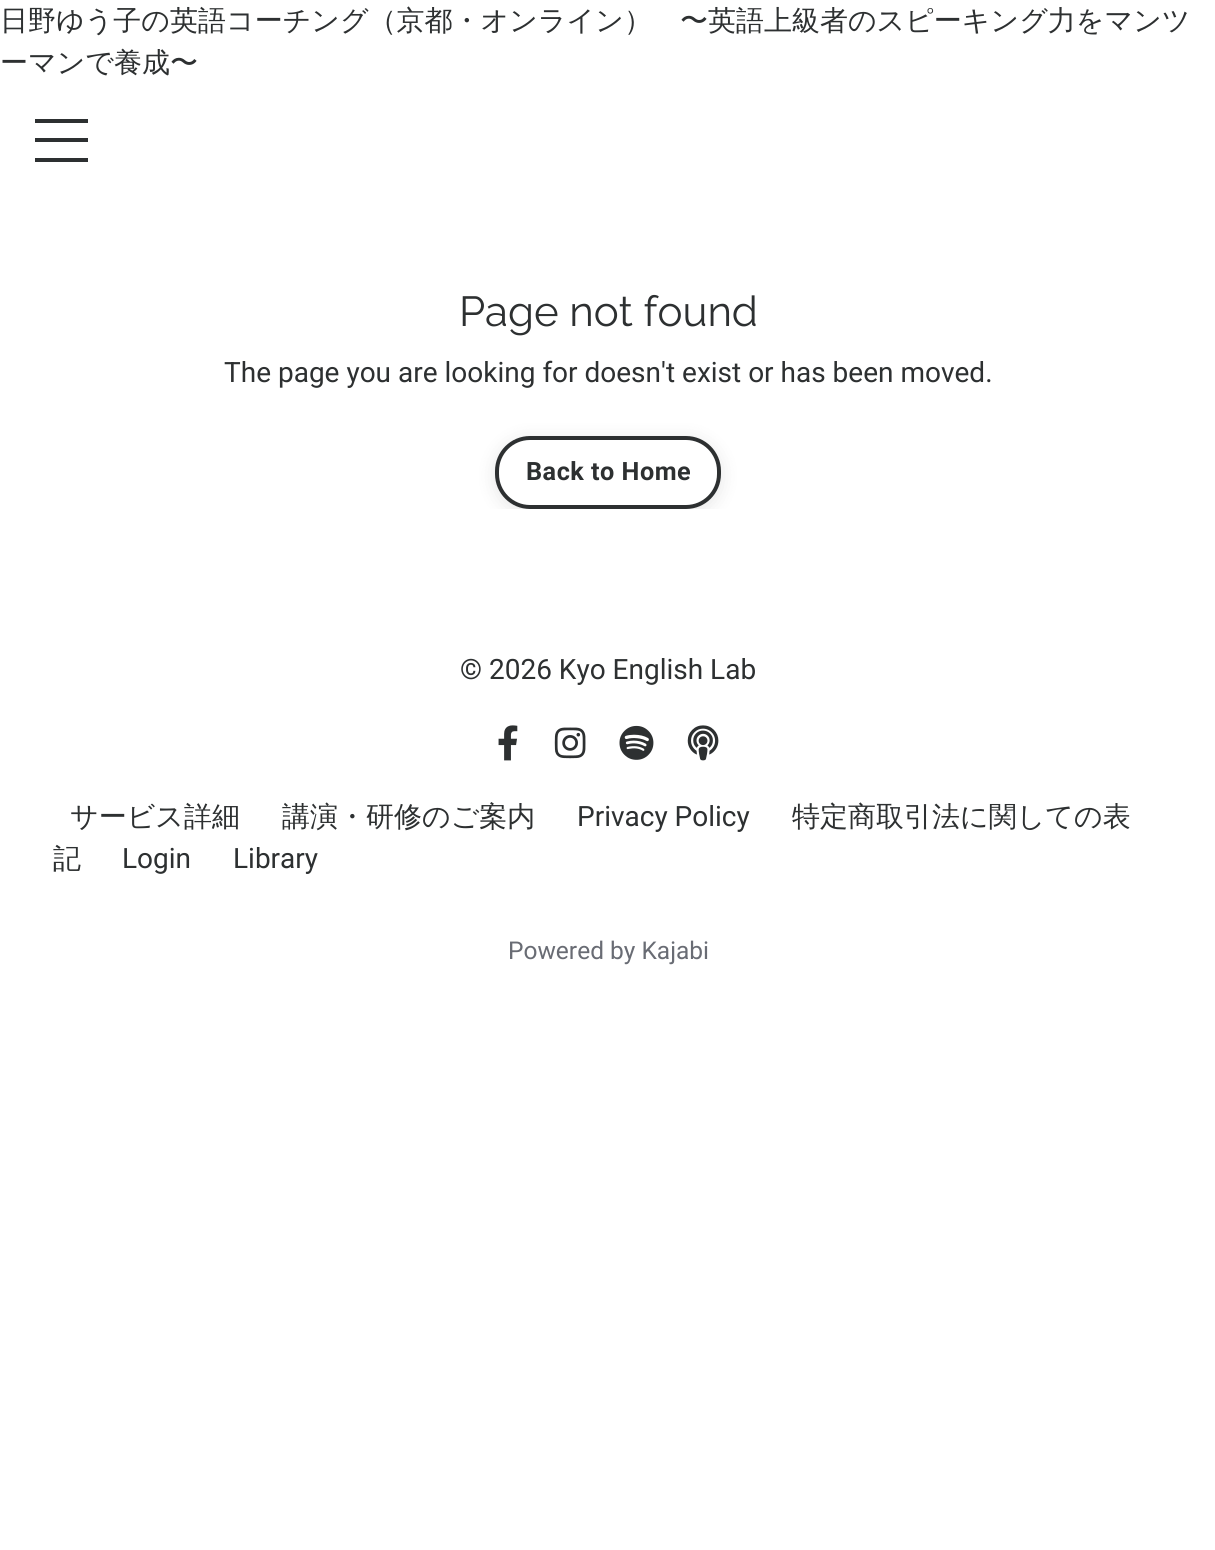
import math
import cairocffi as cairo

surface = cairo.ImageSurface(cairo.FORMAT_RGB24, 1215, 1550)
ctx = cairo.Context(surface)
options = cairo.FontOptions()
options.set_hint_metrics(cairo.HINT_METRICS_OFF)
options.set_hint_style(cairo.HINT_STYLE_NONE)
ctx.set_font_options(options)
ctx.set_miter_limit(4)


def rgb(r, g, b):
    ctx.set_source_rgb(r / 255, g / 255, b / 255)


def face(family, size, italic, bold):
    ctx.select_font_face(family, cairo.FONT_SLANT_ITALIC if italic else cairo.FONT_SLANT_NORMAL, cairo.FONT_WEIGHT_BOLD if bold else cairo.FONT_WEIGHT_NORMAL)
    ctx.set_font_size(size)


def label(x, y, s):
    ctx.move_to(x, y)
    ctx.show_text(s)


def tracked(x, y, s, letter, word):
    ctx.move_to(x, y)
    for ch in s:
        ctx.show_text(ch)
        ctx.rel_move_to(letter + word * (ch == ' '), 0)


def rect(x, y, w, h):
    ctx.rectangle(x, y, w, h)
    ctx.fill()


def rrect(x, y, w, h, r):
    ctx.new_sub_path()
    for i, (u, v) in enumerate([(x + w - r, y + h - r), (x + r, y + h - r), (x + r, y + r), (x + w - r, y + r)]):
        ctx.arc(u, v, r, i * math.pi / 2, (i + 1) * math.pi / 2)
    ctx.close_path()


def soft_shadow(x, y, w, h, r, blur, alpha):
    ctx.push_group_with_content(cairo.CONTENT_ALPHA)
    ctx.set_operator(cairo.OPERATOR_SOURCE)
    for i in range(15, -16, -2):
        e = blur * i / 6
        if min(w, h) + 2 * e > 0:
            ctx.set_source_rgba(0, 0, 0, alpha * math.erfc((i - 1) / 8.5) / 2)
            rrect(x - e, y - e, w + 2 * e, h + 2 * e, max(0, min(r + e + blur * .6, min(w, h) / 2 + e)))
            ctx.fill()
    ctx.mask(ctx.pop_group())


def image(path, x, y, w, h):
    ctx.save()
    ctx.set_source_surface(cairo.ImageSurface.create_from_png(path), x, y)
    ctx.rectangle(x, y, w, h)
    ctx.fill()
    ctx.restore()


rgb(255, 255, 255)
ctx.paint()
face('WenQuanYi Zen Hei Medium', 28, 0, 0)
rgb(45, 48, 49)
label(0, 30, '日野ゆう子の英語コーチング（京都・オンライン）　〜英語上級者のスピーキング力をマンツ')
label(0, 72, 'ーマンで養成〜')
rect(35, 119, 53, 4)
rect(35, 138, 53, 4)
rect(35, 158, 53, 4)
face('Raleway', 42, 0, 0)
label(459, 326, 'Page not found')
face('Roboto', 28, 0, 0)
label(224, 382, 'The page you are looking for doesn\'t exist or has been moved.')
ctx.save()
rrect(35, 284, 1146, 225, 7)
ctx.clip()
ctx.set_fill_rule(cairo.FILL_RULE_EVEN_ODD)
ctx.new_path()
ctx.move_to(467, 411)
ctx.line_to(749, 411)
ctx.line_to(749, 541)
ctx.line_to(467, 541)
ctx.close_path()
ctx.move_to(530, 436)
ctx.line_to(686, 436)
ctx.curve_to(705.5, 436, 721, 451.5, 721, 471)
ctx.line_to(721, 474)
ctx.curve_to(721, 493.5, 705.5, 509, 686, 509)
ctx.line_to(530, 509)
ctx.curve_to(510.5, 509, 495, 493.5, 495, 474)
ctx.line_to(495, 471)
ctx.curve_to(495, 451.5, 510.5, 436, 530, 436)
ctx.close_path()
ctx.clip()
rgb(0, 0, 0)
soft_shadow(495, 439, 226, 74, 35, 9, 0.1)
ctx.restore()
rrect(497, 438, 222, 69, 33)
ctx.set_line_width(4)
ctx.stroke()
face('Roboto', 25.25, 0, 1)
tracked(526, 480, 'Back to Home', 0.5, 0)
face('Roboto', 28, 0, 0)
label(460, 679, '© 2026 Kyo English Lab')
image('image0.png', 498, 725, 20, 36)
image('image1.png', 554, 727, 32, 32)
image('image2.png', 619, 725, 35, 35)
image('image3.png', 687, 725, 32, 36)
face('WenQuanYi Zen Hei Medium', 28, 0, 0)
label(70, 826, 'サービス詳細')
label(282, 826, '講演・研修のご案内')
face('Roboto', 28, 0, 0)
label(577, 826, 'Privacy Policy')
face('WenQuanYi Zen Hei Medium', 28, 0, 0)
label(792, 826, '特定商取引法に関しての表')
label(53, 868, '記')
face('Roboto', 28, 0, 0)
label(122, 868, 'Login')
label(233, 868, 'Library')
face('Roboto', 24.5, 0, 0)
rgb(105, 108, 116)
label(508, 959, 'Powered by Kajabi')
surface.write_to_png('render.png')
